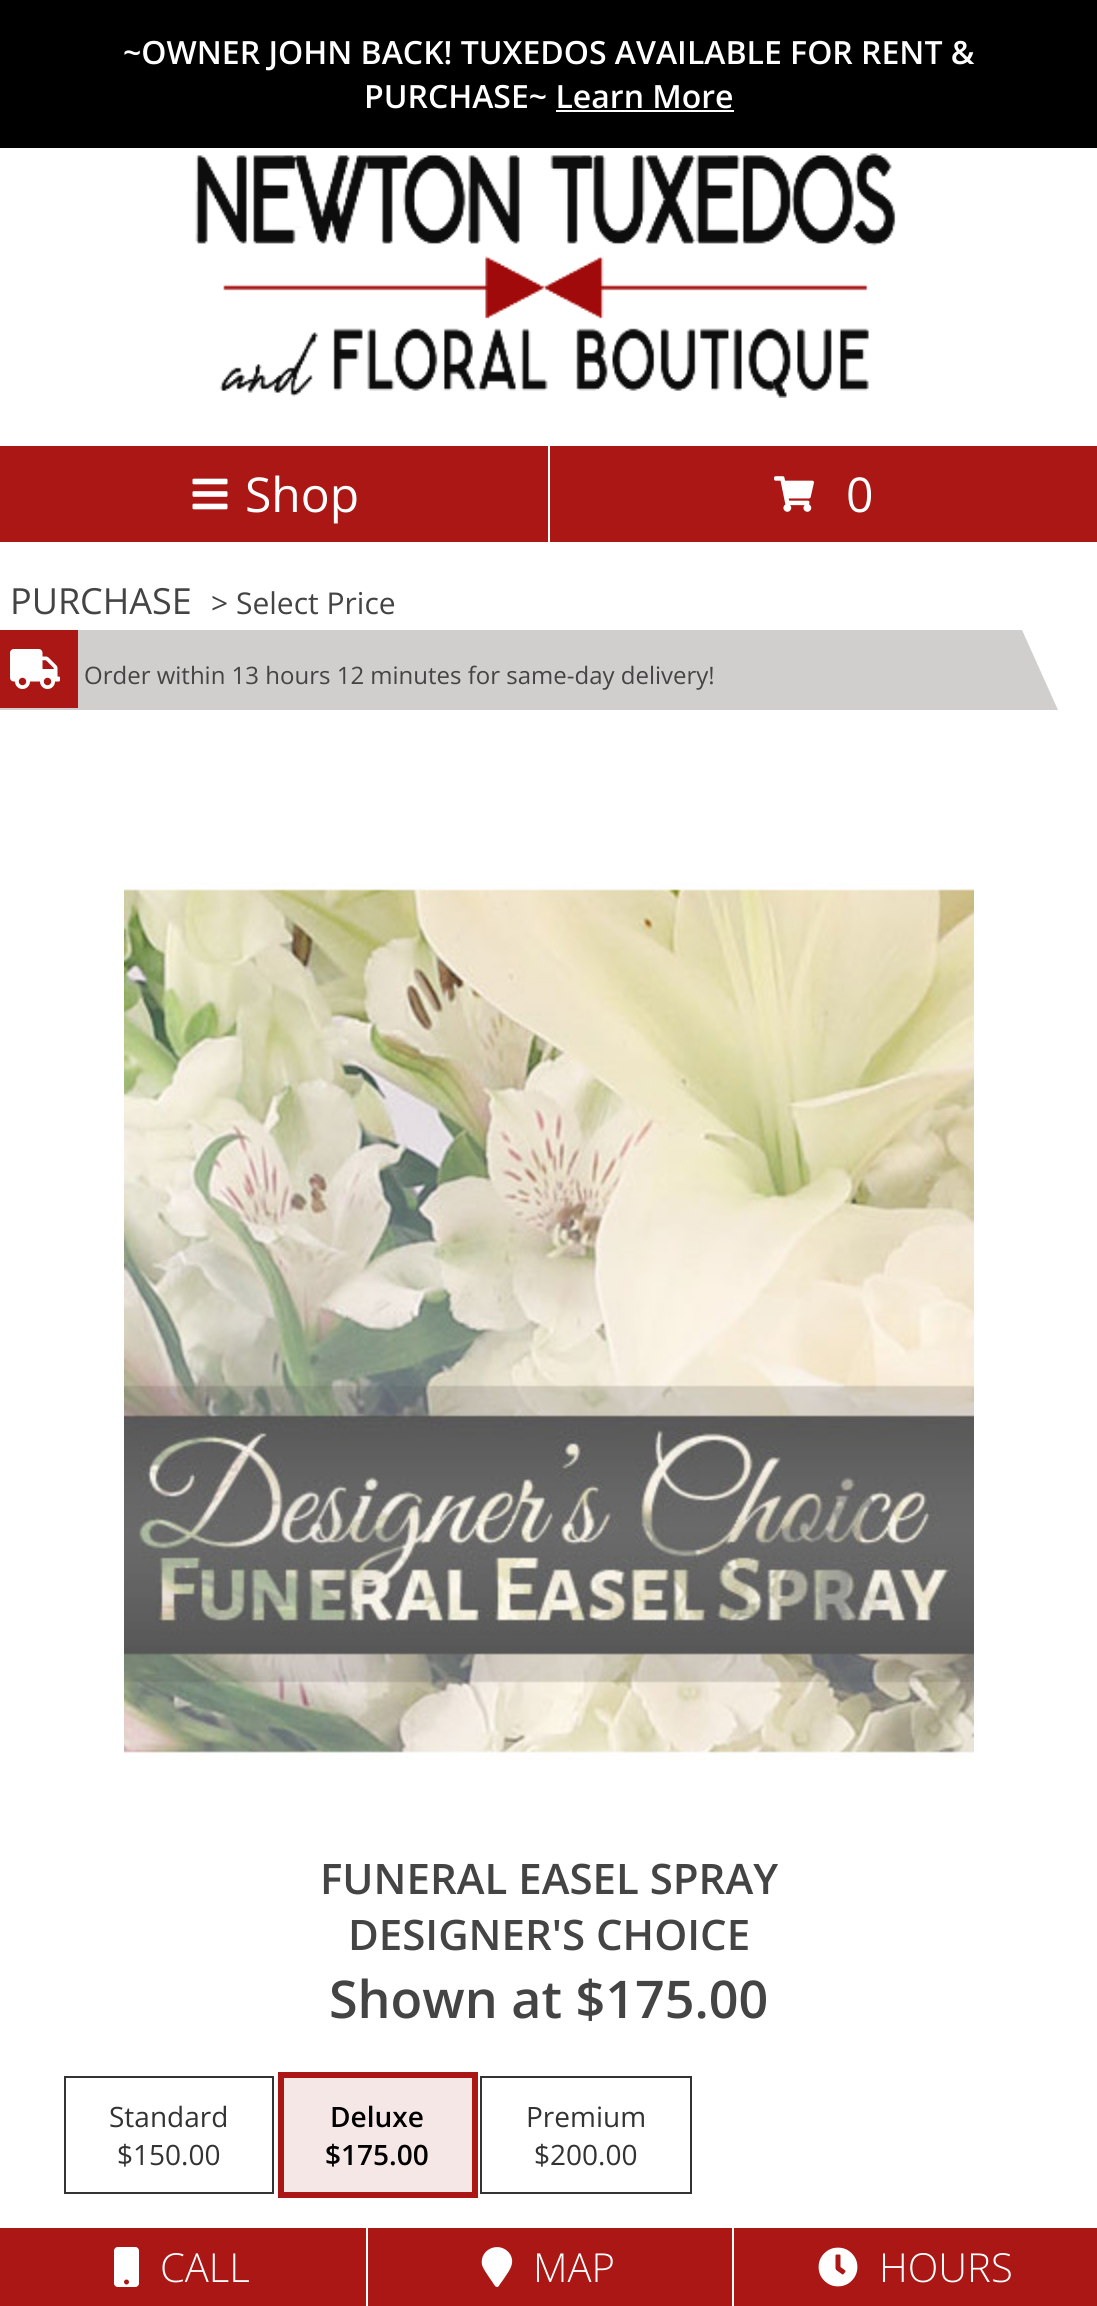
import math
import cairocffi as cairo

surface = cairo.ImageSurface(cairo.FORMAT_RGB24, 1097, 2306)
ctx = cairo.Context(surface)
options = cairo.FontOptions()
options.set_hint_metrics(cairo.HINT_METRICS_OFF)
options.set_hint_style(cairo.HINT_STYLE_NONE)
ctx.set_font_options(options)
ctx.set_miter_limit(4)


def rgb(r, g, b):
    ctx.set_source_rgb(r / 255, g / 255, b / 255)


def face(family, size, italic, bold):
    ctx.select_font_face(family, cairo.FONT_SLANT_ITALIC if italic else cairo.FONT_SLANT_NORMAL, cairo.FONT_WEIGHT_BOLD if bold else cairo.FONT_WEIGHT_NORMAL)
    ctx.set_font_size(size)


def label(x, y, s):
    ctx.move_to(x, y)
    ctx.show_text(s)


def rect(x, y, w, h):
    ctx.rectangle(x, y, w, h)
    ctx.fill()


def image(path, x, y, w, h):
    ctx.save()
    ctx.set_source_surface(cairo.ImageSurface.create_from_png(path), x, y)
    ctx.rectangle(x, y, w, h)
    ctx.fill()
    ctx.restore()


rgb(255, 255, 255)
ctx.paint()
rgb(0, 0, 0)
rect(0, 0, 1097, 148)
face('Open Sans SemiBold', 32, 0, 0)
rgb(255, 255, 255)
label(123, 64, '~OWNER JOHN BACK! TUXEDOS AVAILABLE FOR RENT &')
label(364, 108, 'PURCHASE~ Learn More')
rect(556, 110, 178, 2)
image('image0.png', 195, 153, 701, 245)
rgb(170, 23, 20)
rect(0, 446, 548, 96)
image('image1.png', 192, 478, 36, 32)
face('Open Sans', 48, 0, 0)
rgb(255, 255, 255)
label(245, 512, 'Shop')
rgb(170, 23, 20)
rect(550, 446, 547, 96)
image('image2.png', 774, 476, 40, 36)
rgb(255, 255, 255)
label(846, 512, '0')
face('Open Sans', 36, 0, 0)
rgb(68, 68, 68)
label(10, 614, 'PURCHASE')
face('Open Sans', 30, 0, 0)
label(211, 614, '> Select Price')
rgb(208, 207, 205)
ctx.new_path()
ctx.move_to(1058, 710)
ctx.line_to(0, 710)
ctx.line_to(0, 630)
ctx.line_to(1022, 630)
ctx.close_path()
ctx.fill()
rgb(170, 23, 20)
rect(0, 630, 78, 78)
image('image3.png', 10, 649, 50, 40)
face('Open Sans', 24, 0, 0)
rgb(68, 68, 68)
label(84, 684, 'Order within 13 hours 12 minutes for same-day delivery!')
image('image4.png', 124, 882, 850, 878)
face('Open Sans SemiBold', 42, 0, 0)
label(320, 1894, 'FUNERAL EASEL SPRAY')
label(348, 1950, 'DESIGNER\'S CHOICE')
face('Open Sans SemiBold', 52, 0, 0)
label(329, 2018, 'Shown at $175.00')
ctx.rectangle(65, 2077, 208, 116)
rgb(51, 51, 51)
ctx.stroke()
face('Open Sans', 28, 0, 0)
label(109, 2127, 'Standard')
label(117, 2165, '$150.00')
ctx.rectangle(281, 2075, 194, 120)
rgb(170, 23, 20)
ctx.set_line_width(6)
ctx.stroke()
rgb(246, 231, 231)
rect(284, 2078, 188, 114)
face('Open Sans SemiBold', 28, 0, 0)
rgb(0, 0, 0)
label(330, 2127, 'Deluxe')
label(325, 2165, '$175.00')
ctx.rectangle(481, 2077, 210, 116)
rgb(51, 51, 51)
ctx.set_line_width(2)
ctx.stroke()
face('Open Sans', 28, 0, 0)
label(526, 2127, 'Premium')
label(534, 2165, '$200.00')
rgb(170, 23, 20)
rect(0, 2228, 366, 78)
image('image5.png', 114, 2247, 25, 40)
face('Open Sans Light', 40, 0, 0)
rgb(255, 255, 255)
label(160, 2282, 'CALL')
rgb(170, 23, 20)
rect(368, 2228, 364, 78)
rgb(255, 255, 255)
ctx.new_path()
ctx.move_to(495, 2286)
ctx.curve_to(492, 2281, 484, 2271, 482, 2265)
ctx.curve_to(479, 2249, 500, 2240, 510, 2254)
ctx.curve_to(516, 2264, 508, 2272, 503, 2280)
ctx.line_to(498, 2287)
ctx.curve_to(497, 2287, 496, 2287, 495, 2286)
ctx.close_path()
ctx.fill()
label(533, 2282, 'MAP')
rgb(170, 23, 20)
rect(734, 2228, 363, 78)
image('image6.png', 818, 2247, 40, 40)
rgb(255, 255, 255)
label(879, 2282, 'HOURS')
surface.write_to_png('render.png')
